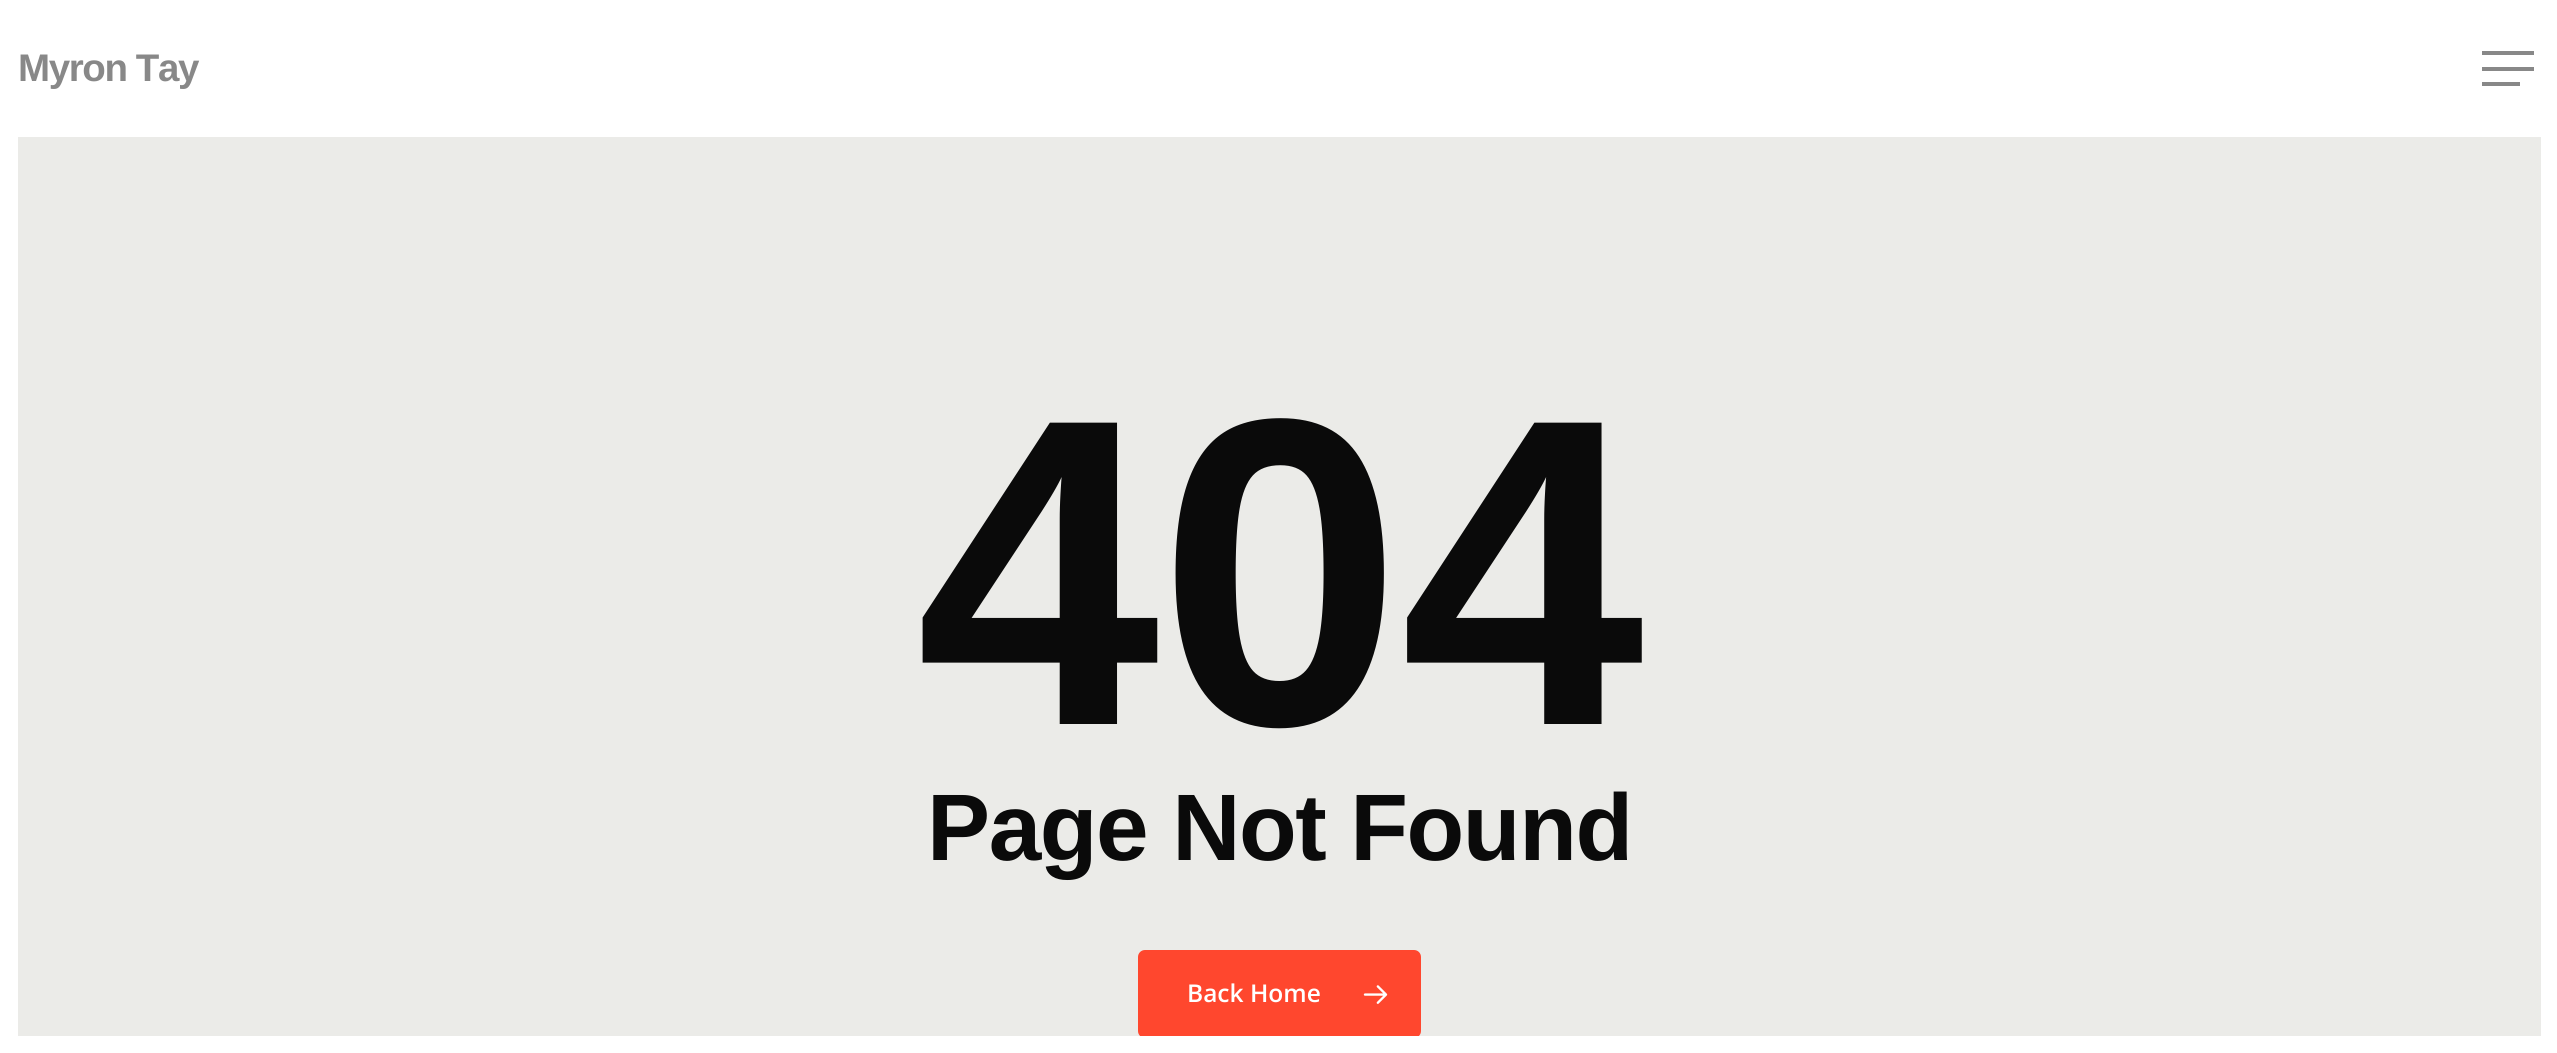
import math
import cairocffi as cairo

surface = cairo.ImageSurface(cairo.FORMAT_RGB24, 2557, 1053)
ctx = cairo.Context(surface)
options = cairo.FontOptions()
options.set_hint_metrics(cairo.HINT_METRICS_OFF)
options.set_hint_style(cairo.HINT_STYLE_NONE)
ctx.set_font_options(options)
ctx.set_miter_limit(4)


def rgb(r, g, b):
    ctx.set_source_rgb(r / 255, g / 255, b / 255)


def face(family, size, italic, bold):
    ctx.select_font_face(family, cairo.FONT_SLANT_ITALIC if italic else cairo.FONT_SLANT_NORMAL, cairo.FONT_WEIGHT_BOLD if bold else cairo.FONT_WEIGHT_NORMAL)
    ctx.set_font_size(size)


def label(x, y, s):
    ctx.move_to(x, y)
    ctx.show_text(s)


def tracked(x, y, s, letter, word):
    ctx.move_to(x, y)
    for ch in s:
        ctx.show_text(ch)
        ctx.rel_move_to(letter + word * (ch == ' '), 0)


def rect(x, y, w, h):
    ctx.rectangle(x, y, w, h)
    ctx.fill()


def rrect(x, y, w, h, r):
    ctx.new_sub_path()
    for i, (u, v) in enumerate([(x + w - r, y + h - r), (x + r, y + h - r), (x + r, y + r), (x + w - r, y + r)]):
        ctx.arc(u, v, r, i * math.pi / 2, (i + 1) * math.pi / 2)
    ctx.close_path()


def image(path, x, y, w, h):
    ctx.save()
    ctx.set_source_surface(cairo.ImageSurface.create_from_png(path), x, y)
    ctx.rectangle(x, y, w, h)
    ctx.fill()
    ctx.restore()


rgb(235, 235, 232)
ctx.paint()
rgb(255, 255, 255)
rect(0, 0, 18, 1053)
rect(18, 0, 2523, 137)
rect(2541, 0, 16, 1036)
face('Liberation Sans', 38.5, 0, 1)
rgb(136, 136, 136)
tracked(18, 81, 'Myron Tay', -1.4, 0)
rect(2482, 51, 52, 4)
rect(2482, 82, 38, 4)
rect(2482, 67, 52, 4)
face('Liberation Sans', 438, 0, 1)
rgb(10, 10, 10)
tracked(916, 724, '404', -1.4, 0)
face('Liberation Sans', 94.5, 0, 1)
tracked(927, 860, 'Page Not Found', -1.4, 0)
rgb(255, 71, 46)
rrect(1138, 950, 283, 88, 7)
ctx.fill()
face('Open Sans SemiBold', 24.5, 0, 0)
rgb(255, 255, 255)
label(1187, 1002, 'Back Home')
image('image0.png', 1363, 985, 25, 19)
rect(18, 1036, 2539, 17)
surface.write_to_png('render.png')
